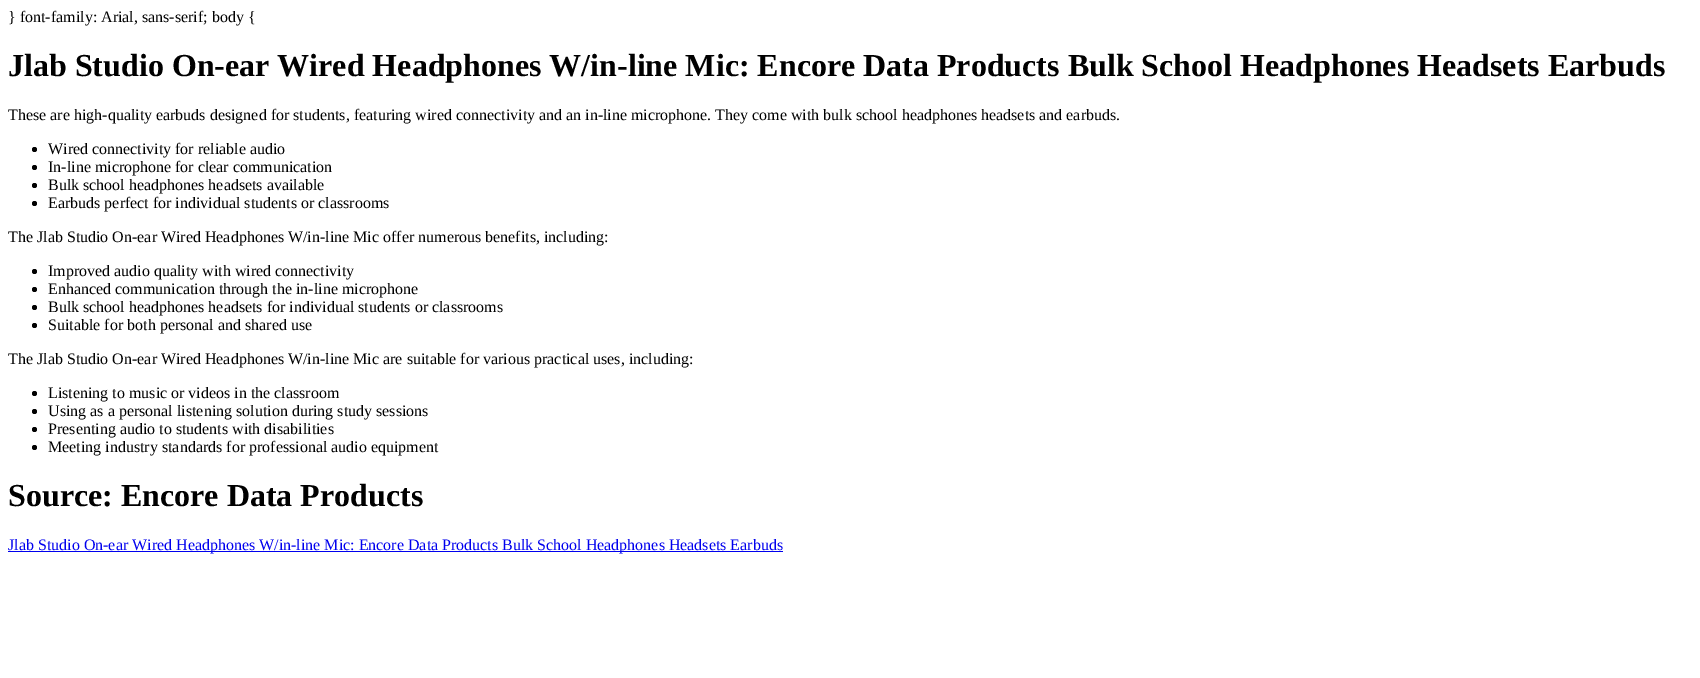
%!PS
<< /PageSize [1700 678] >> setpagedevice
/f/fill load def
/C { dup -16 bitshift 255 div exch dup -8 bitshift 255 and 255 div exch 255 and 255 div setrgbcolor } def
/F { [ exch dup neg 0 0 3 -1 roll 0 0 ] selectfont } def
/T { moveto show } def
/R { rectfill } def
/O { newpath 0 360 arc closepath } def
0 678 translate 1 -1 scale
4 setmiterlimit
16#FFFFFF C
0 0 1700 678 R
/LiberationSerif-Regular 16 F
16#000000 C
(} font-family: Arial, sans-serif; body {) 8 22 T
/LiberationSerif-Bold 32 F
(Jlab Studio On-ear Wired Headphones W/in-line Mic: Encore Data Products Bulk School Headphones Headsets Earbuds) 8 76 T
/LiberationSerif-Regular 16 F
(These are high-quality earbuds designed for students, featuring wired connectivity and an in-line microphone. They come with bulk school headphones headsets and earbuds.) 8 120 T
34.5 149.5 2.5 O f
(Wired connectivity for reliable audio) 48 154 T
34.5 167.5 2.5 O f
(In-line microphone for clear communication) 48 172 T
34.5 185.5 2.5 O f
(Bulk school headphones headsets available) 48 190 T
34.5 203.5 2.5 O f
(Earbuds perfect for individual students or classrooms) 48 208 T
(The Jlab Studio On-ear Wired Headphones W/in-line Mic offer numerous benefits, including:) 8 242 T
34.5 271.5 2.5 O f
(Improved audio quality with wired connectivity) 48 276 T
34.5 289.5 2.5 O f
(Enhanced communication through the in-line microphone) 48 294 T
34.5 307.5 2.5 O f
(Bulk school headphones headsets for individual students or classrooms) 48 312 T
34.5 325.5 2.5 O f
(Suitable for both personal and shared use) 48 330 T
(The Jlab Studio On-ear Wired Headphones W/in-line Mic are suitable for various practical uses, including:) 8 364 T
34.5 393.5 2.5 O f
(Listening to music or videos in the classroom) 48 398 T
34.5 411.5 2.5 O f
(Using as a personal listening solution during study sessions) 48 416 T
34.5 429.5 2.5 O f
(Presenting audio to students with disabilities) 48 434 T
34.5 447.5 2.5 O f
(Meeting industry standards for professional audio equipment) 48 452 T
/LiberationSerif-Bold 32 F
(Source: Encore Data Products) 8 506 T
16#0000EE C
8 551 775 1 R
/LiberationSerif-Regular 16 F
(Jlab Studio On-ear Wired Headphones W/in-line Mic: Encore Data Products Bulk School Headphones Headsets Earbuds) 8 550 T
showpage
